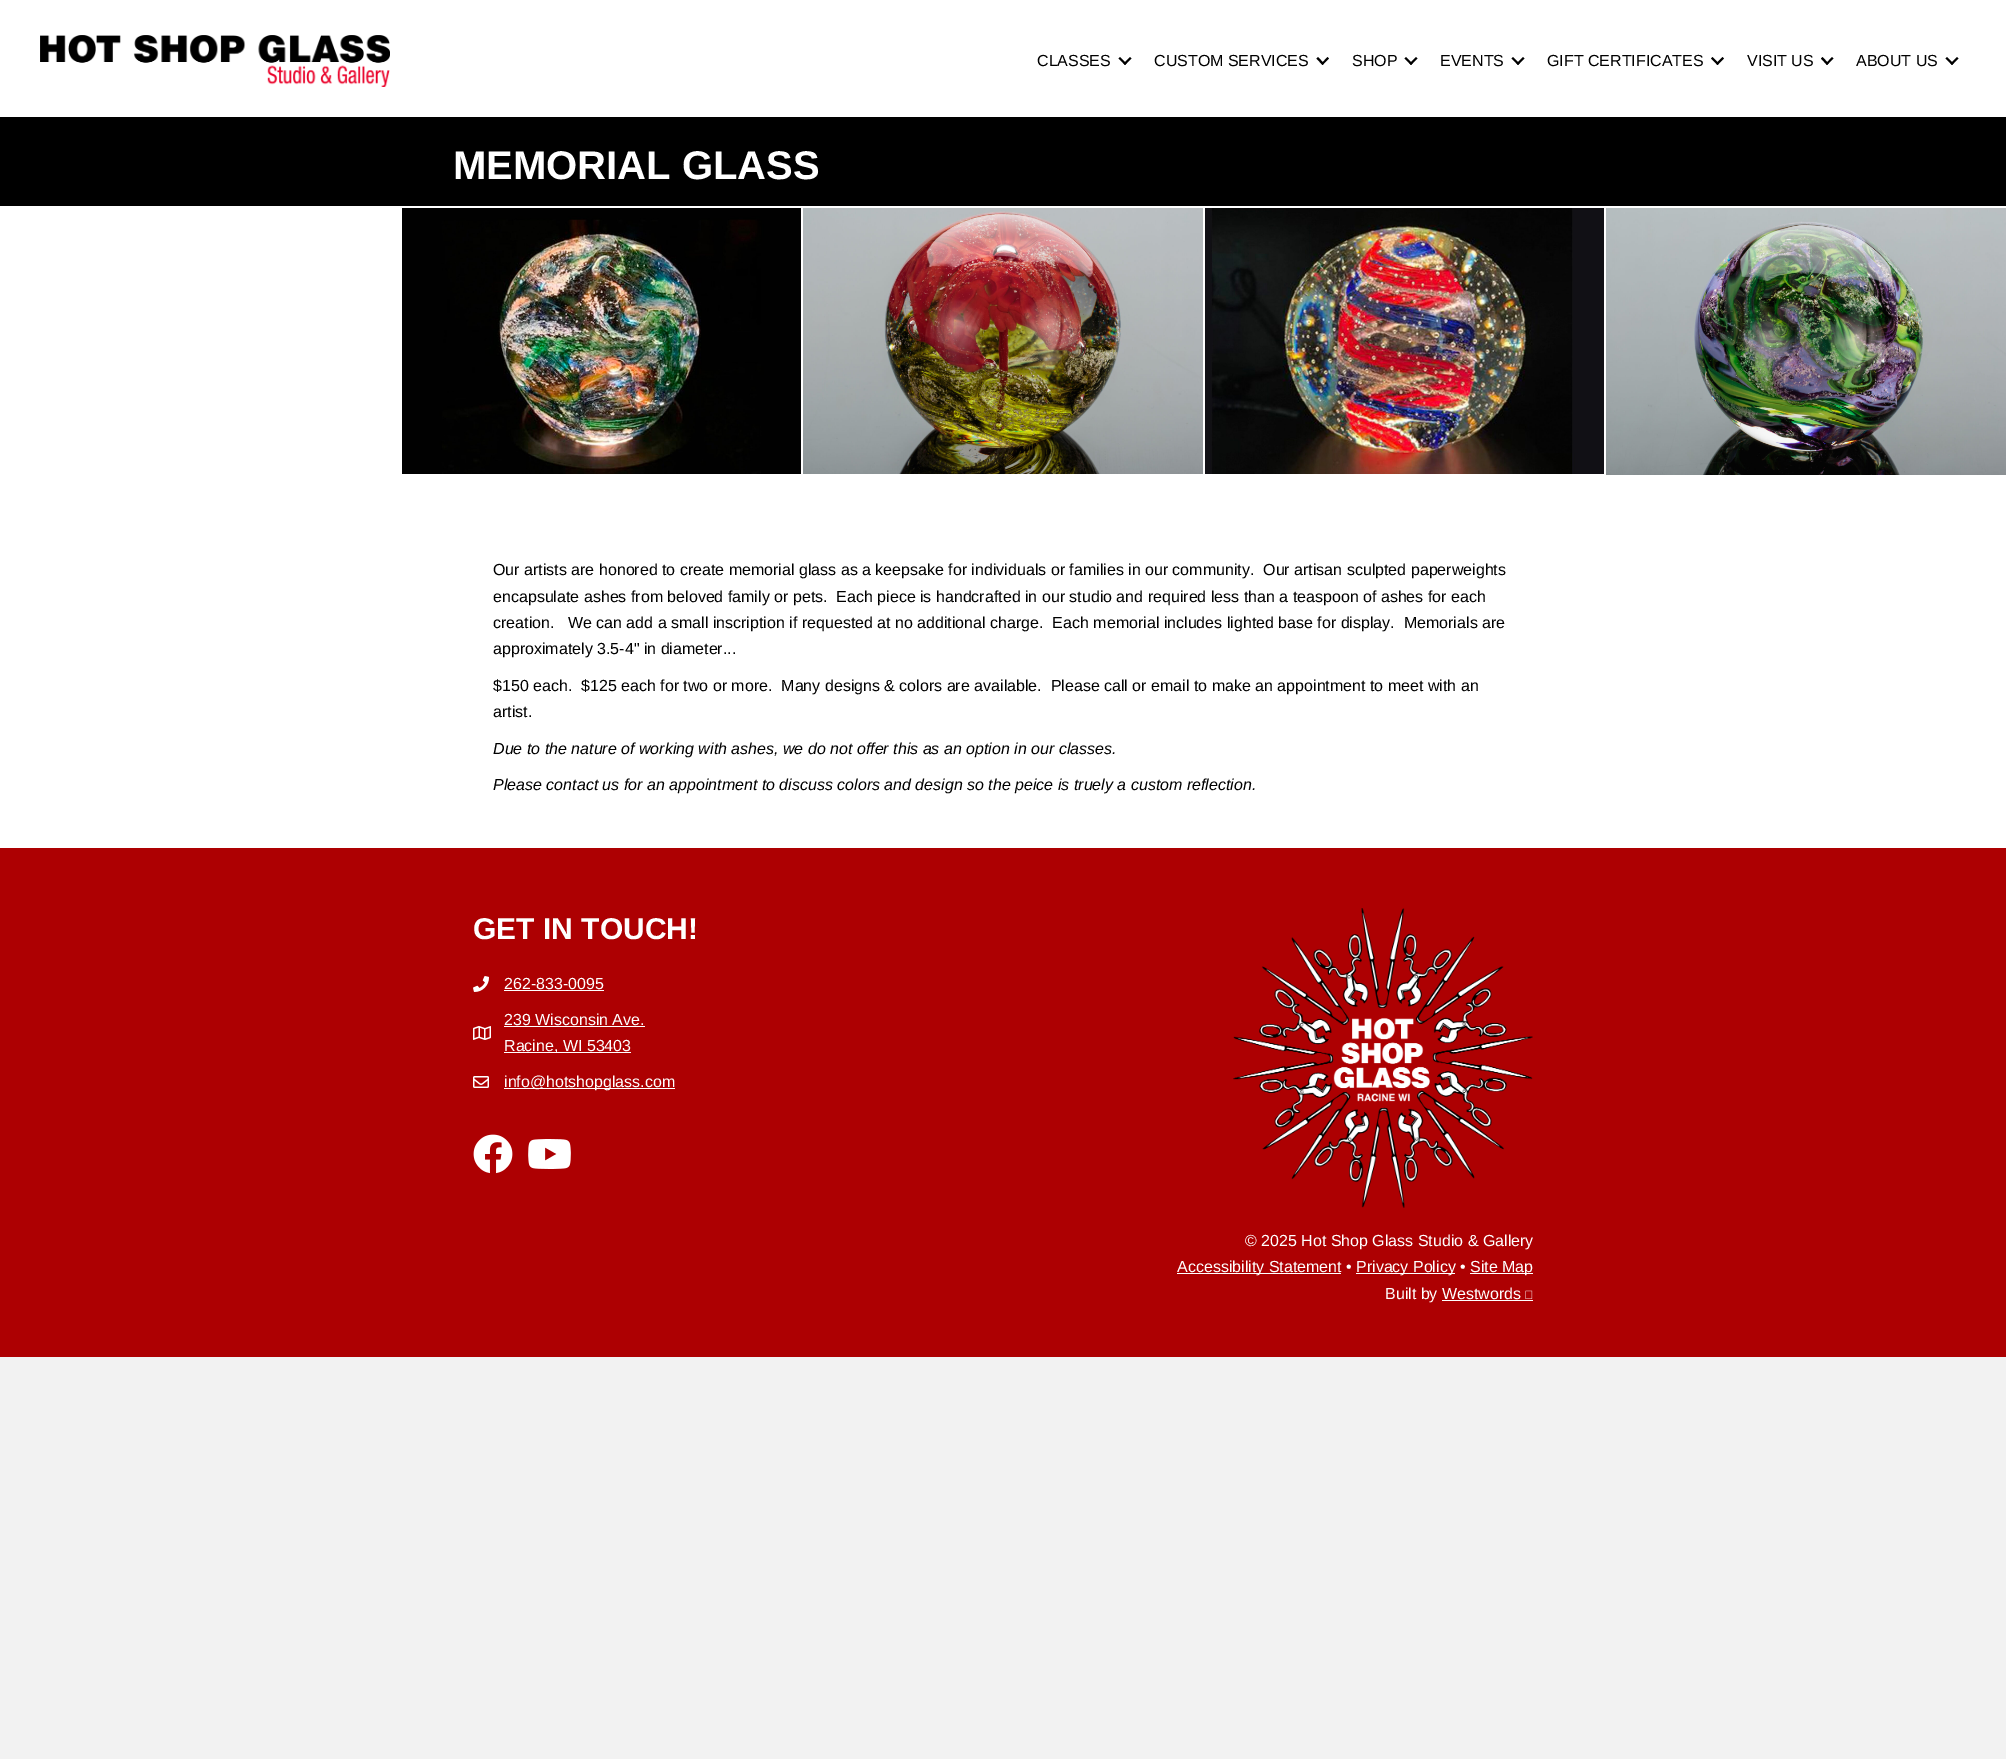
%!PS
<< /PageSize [2006 1759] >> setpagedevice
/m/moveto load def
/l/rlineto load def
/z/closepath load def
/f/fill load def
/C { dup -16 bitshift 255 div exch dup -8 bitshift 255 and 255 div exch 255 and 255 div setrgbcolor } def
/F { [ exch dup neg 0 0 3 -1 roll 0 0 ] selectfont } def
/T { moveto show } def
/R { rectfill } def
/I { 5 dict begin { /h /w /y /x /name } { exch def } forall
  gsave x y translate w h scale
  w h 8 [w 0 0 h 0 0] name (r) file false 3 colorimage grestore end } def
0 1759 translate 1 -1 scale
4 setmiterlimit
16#F2F2F2 C
0 0 2006 1759 R
16#FFFFFF C
0 0 2006 117 R
(1.rgb) 40 35 350 52 I
/LiberationSans-Regular 16 F
16#000000 C
(CLASSES) 1037 66 T
1130 57 m 1.5 1.5 l -6.5 6.5 l -1.5 -1.5 l z f
1120 57 m 6.5 6.5 l -1.5 1.5 l -6.5 -6.5 l z f
(CUSTOM SERVICES) 1154 66 T
1327.5 57 m 1.5 1.5 l -6.5 6.5 l -1 -1.5 l z f
1318 57 m 6 6.5 l -1.5 1.5 l -6 -6.5 l z f
(SHOP) 1352 66 T
1416 57 m 1.5 1.5 l -6.5 6.5 l -1.5 -1.5 l z f
1406 57 m 6.5 6.5 l -1.5 1.5 l -6.5 -6.5 l z f
(EVENTS) 1440 66 T
1523 57 m 1.5 1.5 l -6.5 6.5 l -1.5 -1.5 l z f
1513 57 m 6.5 6.5 l -1.5 1.5 l -6.5 -6.5 l z f
(GIFT CERTIFICATES) 1547 66 T
1722.5 57 m 1.5 1.5 l -6.5 6.5 l -1.5 -1.5 l z f
1712.5 57 m 6.5 6.5 l -1.5 1.5 l -6.5 -6.5 l z f
(VISIT US) 1747 66 T
1832 57 m 1.5 1.5 l -6.5 6.5 l -1 -1.5 l z f
1822.5 57 m 6 6.5 l -1.5 1.5 l -6 -6.5 l z f
(ABOUT US) 1856 66 T
1957 57 m 1.5 1.5 l -6.5 6.5 l -1.5 -1.5 l z f
1947 57 m 6.5 6.5 l -1.5 1.5 l -6.5 -6.5 l z f
16#FFFFFF C
0 206 2006 642 R
16#000000 C
0 117 2006 89 R
/LiberationSans-Bold 40 F
16#FFFFFF C
(MEMORIAL GLASS) 453 179 T
(2.rgb) 402 208 399 266 I
(3.rgb) 803 208 400 266 I
(4.rgb) 1205 208 399 266 I
(5.rgb) 1606 208 400 267 I
/LiberationSans-Regular 16 F
16#000000 C
(Our artists are honored to create memorial glass as a keepsake for individuals or families in our community.  Our artisan sculpted paperweights) 493 575 T
(encapsulate ashes from beloved family or pets.  Each piece is handcrafted in our studio and required less than a teaspoon of ashes for each) 493 602 T
(creation.   We can add a small inscription if requested at no additional charge.  Each memorial includes lighted base for display.  Memorials are) 493 628 T
(approximately 3.5-4" in diameter...) 493 654 T
($150 each.  $125 each for two or more.  Many designs & colors are available.  Please call or email to make an appointment to meet with an) 493 691 T
(artist.) 493 717 T
/LiberationSans-Italic 16 F
(Due to the nature of working with ashes, we do not offer this as an option in our classes.) 493 754 T
(Please contact us for an appointment to discuss colors and design so the peice is truely a custom reflection.) 493 790 T
16#AD0002 C
0 848 2006 509 R
/LiberationSans-Bold 30 F
16#FFFFFF C
(GET IN TOUCH!) 473 939 T
(6.rgb) 473 976 16 16 I
/LiberationSans-Regular 16 F
(262-833-0095) 504 989 T
504 990 100 1 R
(7.rgb) 473 1026 18 14 I
(239 Wisconsin Ave.) 504 1025 T
504 1026 141 1 R
504 1052 127 1 R
(Racine, WI 53403) 504 1051 T
(8.rgb) 473 1076 16 12 I
504 1088 171 1 R
(info@hotshopglass.com) 504 1087 T
(9.rgb) 473 1134 40 40 I
(10.rgb) 528 1139 43 30 I
(11.rgb) 1233 908 300 300 I
(© 2025 Hot Shop Glass Studio & Gallery) 1245 1246 T
1177 1273 164 1 R
(Accessibility Statement •) 1177 1272 T
1356 1273 99 1 R
(Privacy Policy •) 1356 1272 T
1470 1273 63 1 R
(Site Map) 1470 1272 T
(Built by Westwords) 1385 1299 T
(12.rgb) 1525 1290 8 9 I
1442 1300 91 1 R
showpage
